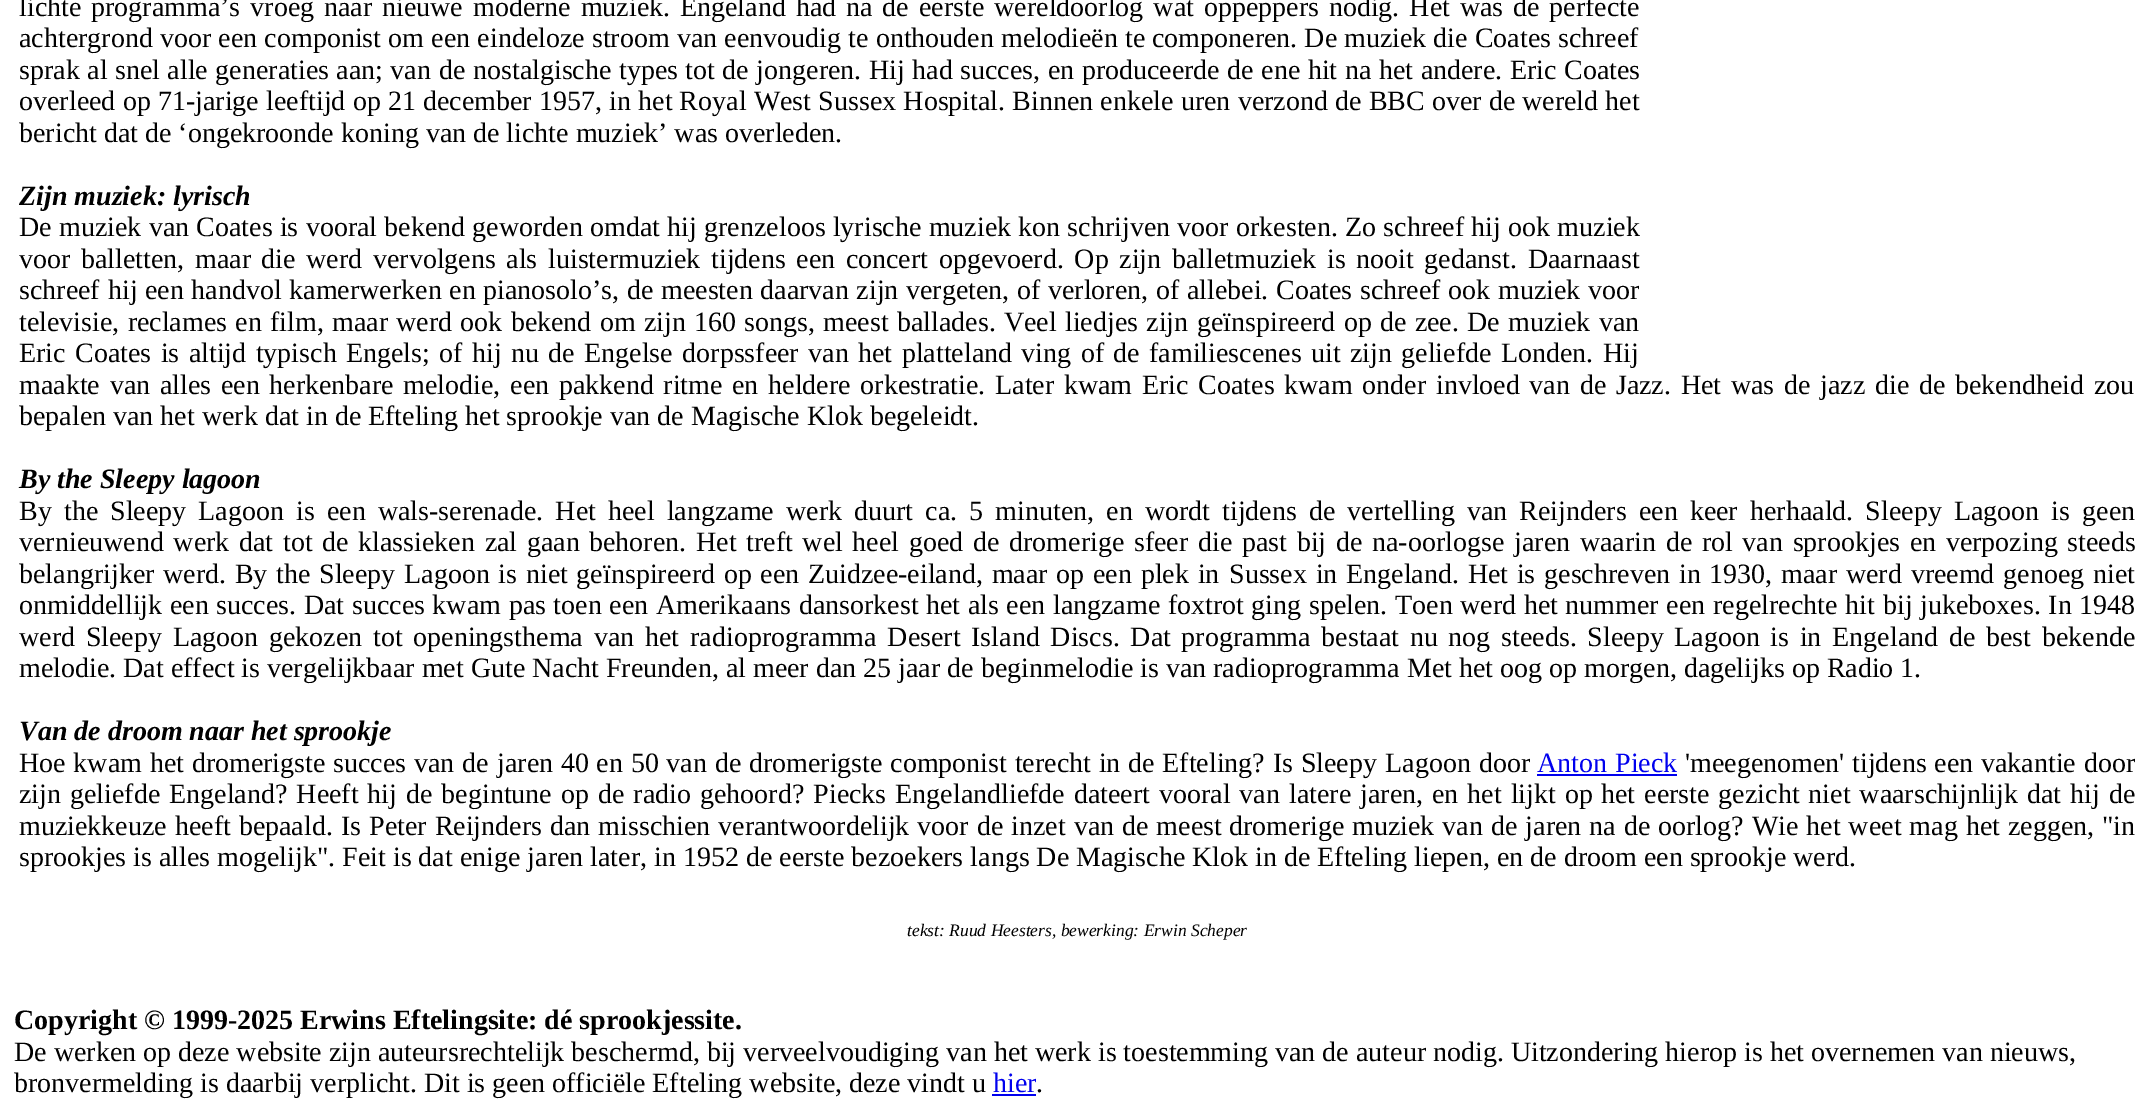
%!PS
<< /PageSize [2154 1113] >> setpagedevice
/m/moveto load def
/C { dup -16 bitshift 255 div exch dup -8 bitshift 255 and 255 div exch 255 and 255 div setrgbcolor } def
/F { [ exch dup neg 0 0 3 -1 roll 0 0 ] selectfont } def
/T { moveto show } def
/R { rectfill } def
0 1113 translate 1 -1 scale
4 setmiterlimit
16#FFFFFF C
0 0 2154 1113 R
/LiberationSerif-Regular 28 F
16#000000 C
19 16 m 2.9 0 32 (lichte programma’s vroeg naar nieuwe moderne muziek. Engeland had na de) widthshow
919 16 m 2.9 0 32 (eerste wereldoorlog wat oppeppers nodig. Het was de perfecte) widthshow
19 47 m .2 0 32 (achtergrond voor een componist om een eindeloze stroom van eenvoudig te onthouden melodieën te) widthshow
(componeren. De muziek die Coates schreef) 1152 47 T
19 79 m .5 0 32 (sprak al snel alle generaties aan; van) widthshow
439 79 m .5 0 32 (de nostalgische types tot de jongeren. Hij had succes, en produceerde de ene hit) widthshow
1345 79 m .5 0 32 (na het andere. Eric Coates) widthshow
19 110 m .2 0 32 (overleed op 71-jarige leeftijd op 21 december 1957, in het Royal West Sussex Hospital. Binnen enkele uren verzond de BBC over de) widthshow
(wereld het) 1522 110 T
(bericht dat de ‘ongekroonde koning van de lichte muziek’ was overleden.) 19 142 T
/LiberationSerif-BoldItalic 28 F
(Zijn muziek: lyrisch) 19 205 T
/LiberationSerif-Regular 28 F
19 236 m .25 0 32 (De muziek van Coates is vooral bekend geworden omdat hij grenzeloos lyrische muziek kon schrijven voor orkesten. Zo schreef hij ook muziek) widthshow
19 268 m 3.6 0 32 (voor balletten, maar die werd vervolgens als luistermuziek tijdens een concert opgevoerd. Op zijn balletmuziek is nooit gedanst. Daarnaast) widthshow
19 299 m 1 0 32 (schreef hij) widthshow
145 299 m .6 0 32 (een handvol kamerwerken en pianosolo’s, de meesten daarvan zijn vergeten, of verloren, of allebei. Coates schreef ook muziek voor) widthshow
19 331 m 1.25 0 32 (televisie, reclames en) widthshow
270 331 m 1.25 0 32 (film, maar werd ook bekend om zijn 160 songs, meest ballades. Veel liedjes zijn) widthshow
1197 331 m 1.25 0 32 (geïnspireerd op de zee. De muziek van) widthshow
19 362 m 2.4 0 32 (Eric Coates is altijd typisch Engels; of hij nu de Engelse dorpssfeer van het platteland ving of de familiescenes uit zijn geliefde Londen. Hij) widthshow
19 394 m 2.7 0 32 (maakte van alles een herkenbare melodie, een pakkend ritme en heldere orkestratie. Later kwam Eric Coates kwam onder invloed van de Jazz. Het was de jazz die de bekendheid zou) widthshow
(bepalen van het werk dat in de Efteling het sprookje van de Magische Klok begeleidt.) 19 425 T
/LiberationSerif-BoldItalic 28 F
(By the Sleepy lagoon) 19 488 T
/LiberationSerif-Regular 28 F
19 520 m 5.1 0 32 (By the Sleepy Lagoon is een wals-serenade. Het heel langzame werk duurt ca. 5 minuten, en wordt tijdens de vertelling van Reijnders een keer) widthshow
1750 520 m 5.1 0 32 (herhaald. Sleepy Lagoon is geen) widthshow
19 551 m 2.7 0 32 (vernieuwend werk dat tot de klassieken zal gaan) widthshow
589 551 m 2.7 0 32 (behoren. Het treft wel heel goed de dromerige sfeer die past bij de na-oorlogse) widthshow
1514 551 m 2.7 0 32 (jaren waarin de rol van sprookjes en verpozing steeds) widthshow
19 583 m 1.75 0 32 (belangrijker werd. By the Sleepy Lagoon is niet geïnspireerd op een Zuidzee-eiland, maar op een plek in) widthshow
1229 583 m 1.75 0 32 (Sussex in Engeland. Het is geschreven in 1930, maar werd vreemd genoeg niet) widthshow
19 614 m .6 0 32 (onmiddellijk een succes. Dat succes kwam pas toen een Amerikaans dansorkest het als een langzame foxtrot ging spelen. Toen werd het nummer een regelrechte hit) widthshow
1883 614 m .6 0 32 (bij jukeboxes. In 1948) widthshow
19 646 m 3.75 0 32 (werd Sleepy Lagoon gekozen tot openingsthema van het) widthshow
690 646 m 3.75 0 32 (radioprogramma Desert Island Discs. Dat programma bestaat nu nog steeds. Sleepy) widthshow
1674 646 m 3.75 0 32 (Lagoon is in Engeland de best bekende) widthshow
(melodie. Dat effect is vergelijkbaar met Gute Nacht Freunden, al meer dan 25 jaar de beginmelodie is van radioprogramma Met het oog op morgen, dagelijks op Radio 1.) 19 677 T
/LiberationSerif-BoldItalic 28 F
(Van de droom naar het sprookje) 19 740 T
/LiberationSerif-Regular 28 F
19 772 m .75 0 32 (Hoe kwam het dromerigste succes van de) widthshow
497 772 m .75 0 32 (jaren 40 en 50 van de dromerigste componist terecht in de Efteling? Is Sleepy) widthshow
1385 772 m 1 0 32 (Lagoon door) widthshow
16#0000EE C
1537 772 m 1 0 32 (Anton Pieck) widthshow
1537 774 140 2 R
16#000000 C
1685 772 m .75 0 32 ('meegenomen' tijdens een) widthshow
1981 772 m 1 0 32 (vakantie door) widthshow
19 803 m 2 0 32 (zijn geliefde Engeland? Heeft hij de begintune op de radio) widthshow
700 803 m 2 0 32 (gehoord? Piecks Engelandliefde dateert vooral van latere jaren, en het lijkt op) widthshow
1601 803 m 2 0 32 (het eerste gezicht niet waarschijnlijk dat hij de) widthshow
19 835 m 1 0 32 (muziekkeuze heeft bepaald. Is) widthshow
369 835 m 1 0 32 (Peter Reijnders dan misschien verantwoordelijk voor de inzet van de meest) widthshow
1229 835 m 1 0 32 (dromerige muziek van de jaren na de oorlog? Wie het weet mag het zeggen, "in) widthshow
(sprookjes is alles mogelijk". Feit is dat enige jaren later, in 1952 de eerste bezoekers langs De Magische Klok in de Efteling liepen, en de droom een sprookje werd.) 19 866 T
/LiberationSerif-Italic 17.5 F
(tekst: Ruud Heesters, bewerking: Erwin Scheper) 907 936 T
/LiberationSerif-Bold 28 F
(Copyright © 1999-2025 Erwins Eftelingsite: dé sprookjessite.) 14 1029 T
/LiberationSerif-Regular 28 F
(De werken op deze website zijn auteursrechtelijk beschermd, bij verveelvoudiging van het werk is toestemming van de auteur nodig. Uitzondering hierop is het overnemen van nieuws,) 14 1061 T
(bronvermelding is daarbij verplicht. Dit is geen officiële Efteling website, deze vindt u) 14 1092 T
16#0000EE C
(hier) 993 1092 T
992 1094 44 2 R
16#000000 C
(.) 1036 1092 T
showpage
